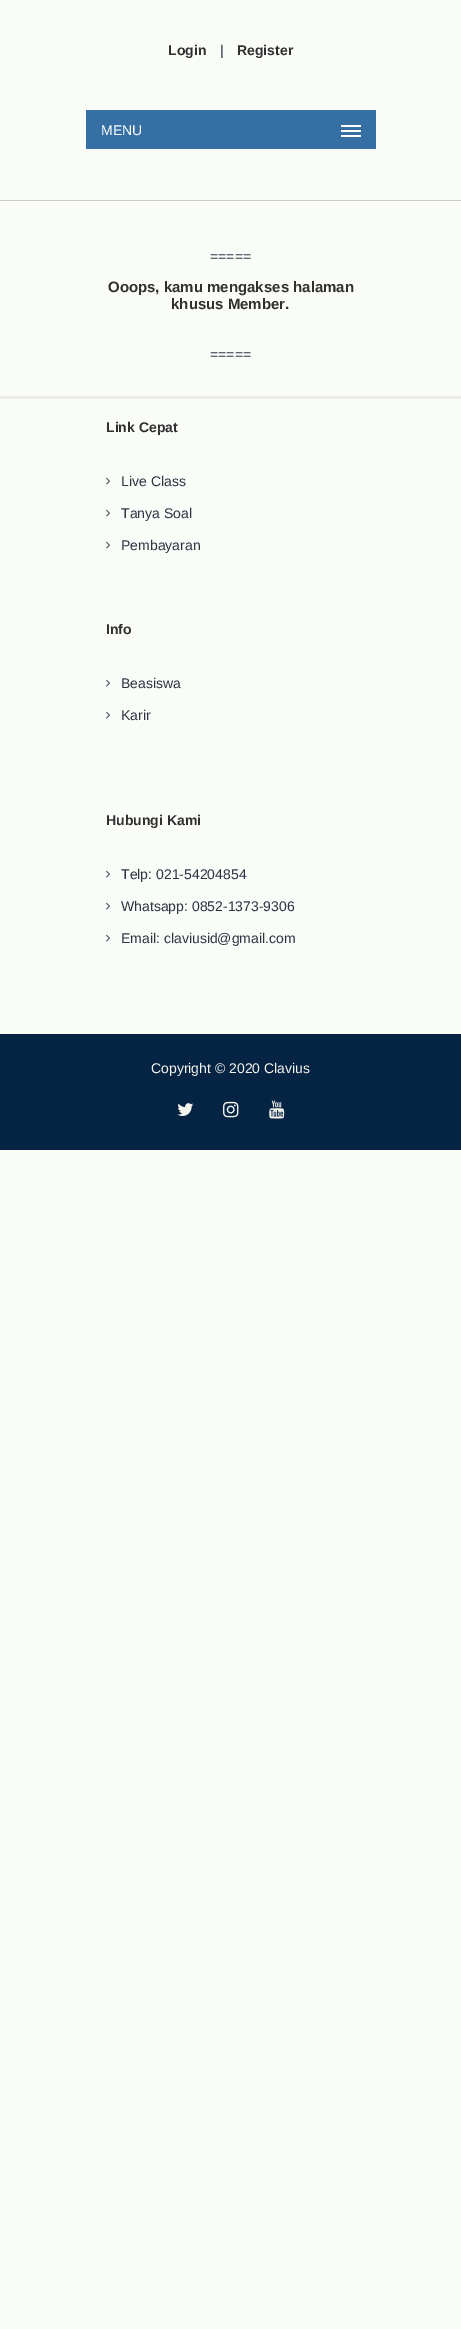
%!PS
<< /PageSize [461 2329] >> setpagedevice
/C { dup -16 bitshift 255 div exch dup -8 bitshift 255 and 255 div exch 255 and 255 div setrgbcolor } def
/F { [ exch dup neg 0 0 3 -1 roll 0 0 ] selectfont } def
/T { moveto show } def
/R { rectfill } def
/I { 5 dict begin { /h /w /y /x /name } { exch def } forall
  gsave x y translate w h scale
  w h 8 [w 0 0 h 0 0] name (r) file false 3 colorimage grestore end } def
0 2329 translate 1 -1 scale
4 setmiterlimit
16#FAFCF8 C
0 0 461 2329 R
/LiberationSans-Bold 14 F
16#303030 C
(Login) 168 55 T
/LiberationSans-Regular 14 F
16#2C3341 C
(|) 220 55 T
/LiberationSans-Bold 14 F
16#303030 C
(Register) 237 55 T
16#366FA4 C
86 110 290 39 R
/LiberationSans-Regular 14 F
16#FFFFFF C
(MENU) 101 135 T
341 130 20 2 R
341 125 20 2 R
341 135 20 2 R
16#CCCCCC C
0 200 461 1 R
16#2C3341 C
(=====) 210 261 T
/LiberationSans-Bold 15 F
16#303030 C
(Ooops, kamu mengakses halaman) 108 292 T
(khusus Member.) 171 309 T
/LiberationSans-Regular 14 F
16#2C3341 C
(=====) 210 359 T
16#EDEDED C
0 396 461 3 R
/LiberationSans-Bold 14 F
16#303030 C
(Link Cepat) 106 432 T
(1.rgb) 106 477 4 8 I
/LiberationSans-Regular 14 F
16#2C3341 C
(Live Class) 121 486 T
(1.rgb) 106 509 4 8 I
(Tanya Soal) 121 518 T
(1.rgb) 106 541 4 8 I
(Pembayaran) 121 550 T
/LiberationSans-Bold 14 F
16#303030 C
(Info) 106 634 T
(1.rgb) 106 679 4 8 I
/LiberationSans-Regular 14 F
16#2C3341 C
(Beasiswa) 121 688 T
(1.rgb) 106 711 4 8 I
(Karir) 121 720 T
/LiberationSans-Bold 14 F
16#303030 C
(Hubungi Kami) 106 825 T
(1.rgb) 106 870 4 8 I
/LiberationSans-Regular 14 F
16#2C3341 C
(Telp: 021-54204854) 121 879 T
(1.rgb) 106 902 4 8 I
(Whatsapp: 0852-1373-9306) 121 911 T
(1.rgb) 106 934 4 8 I
(Email: claviusid@gmail.com) 121 943 T
16#052343 C
0 1034 461 116 R
16#F5F5EE C
(Copyright © 2020 Clavius) 151 1073 T
(2.rgb) 177 1103 17 13 I
(3.rgb) 223 1101 16 17 I
(4.rgb) 269 1100 16 19 I
showpage
